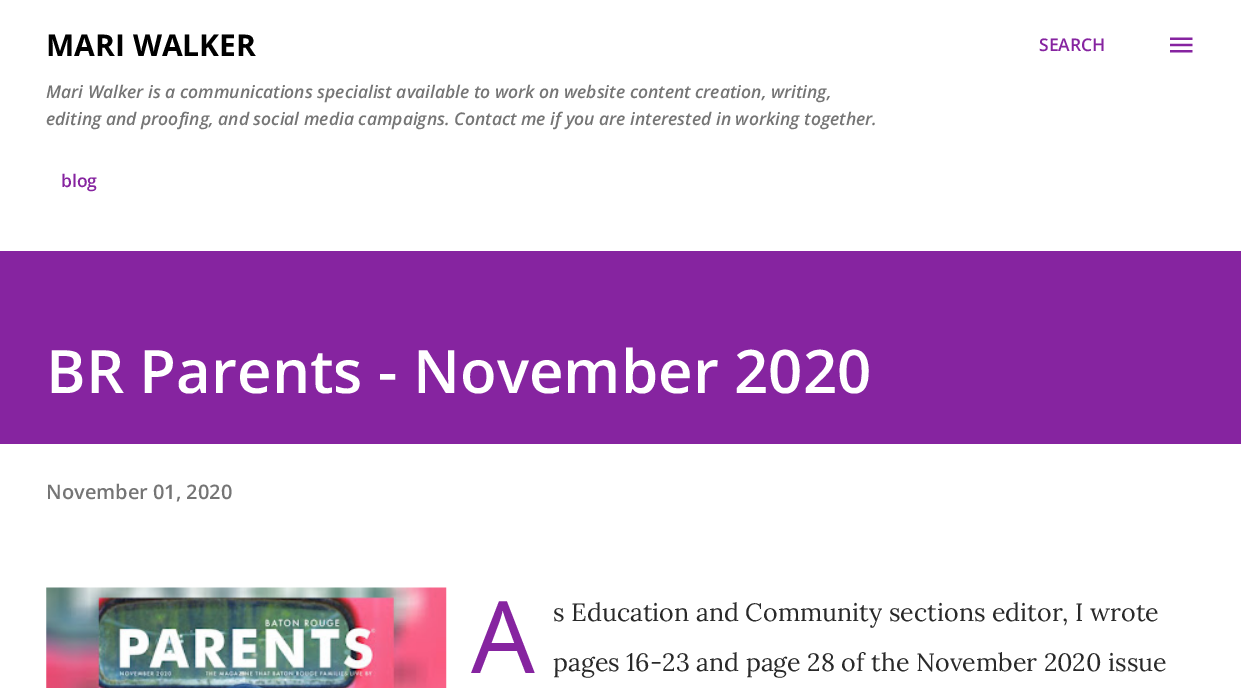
%!PS
<< /PageSize [1241 688] >> setpagedevice
/C { dup -16 bitshift 255 div exch dup -8 bitshift 255 and 255 div exch 255 and 255 div setrgbcolor } def
/F { [ exch dup neg 0 0 3 -1 roll 0 0 ] selectfont } def
/T { moveto show } def
/R { rectfill } def
/I { 5 dict begin { /h /w /y /x /name } { exch def } forall
  gsave x y translate w h scale
  w h 8 [w 0 0 h 0 0] name (r) file false 3 colorimage grestore end } def
0 688 translate 1 -1 scale
4 setmiterlimit
16#FFFFFF C
0 0 1241 688 R
/OpenSans-Bold 30 F
16#000000 C
(MARI WALKER) 46 56 T
/OpenSans-SemiBoldItalic 17.5 F
16#757575 C
(Mari Walker is a communications specialist available to work on website content creation, writing,) 46 98 T
(editing and proofing, and social media campaigns. Contact me if you are interested in working together.) 46 125 T
/OpenSans-SemiBold 17.5 F
16#8624A0 C
(SEARCH) 1039 51 T
(1.rgb) 1170 37 23 16 I
(blog) 61 187 T
0 251 1241 193 R
/OpenSans-SemiBold 60 F
16#FFFFFF C
(BR Parents - November 2020) 46 393 T
/OpenSans-SemiBold 20 F
16#757575 C
(November 01, 2020) 46 499 T
/NotoSans-Regular 100 F
16#8624A0 C
(A) 471 673 T
(2.rgb) 46 587 401 101 I
/Lora-Regular 25 F
16#292929 C
(s Education and Community sections editor, I wrote) 553 621 T
(pages 16-23 and page 28 of the November 2020 issue) 553 671 T
showpage
